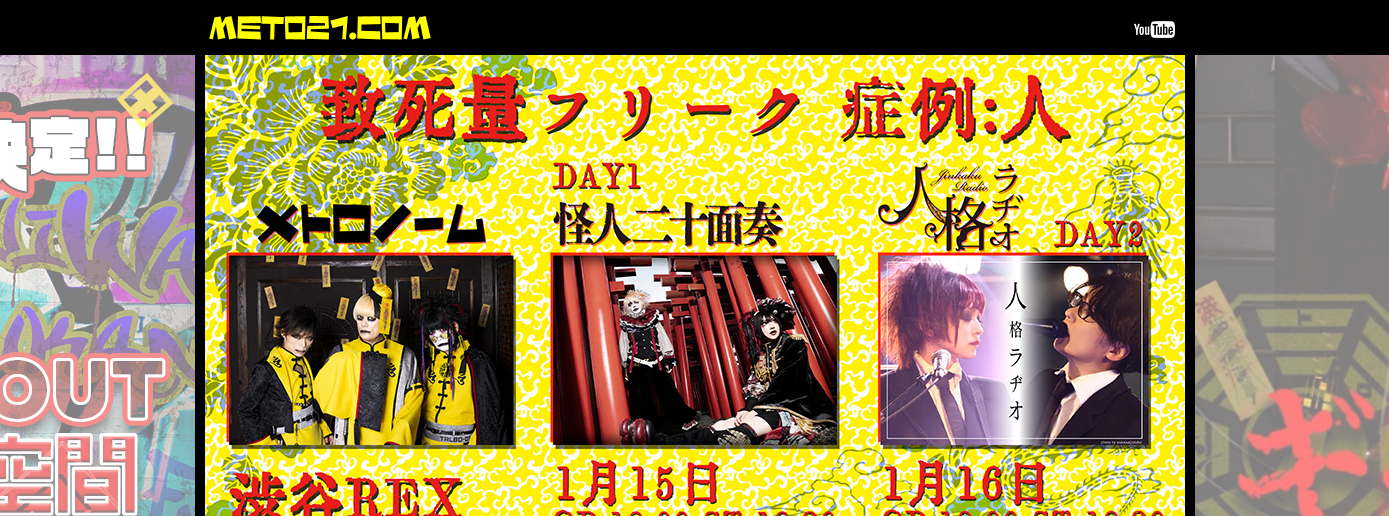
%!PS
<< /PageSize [1389 516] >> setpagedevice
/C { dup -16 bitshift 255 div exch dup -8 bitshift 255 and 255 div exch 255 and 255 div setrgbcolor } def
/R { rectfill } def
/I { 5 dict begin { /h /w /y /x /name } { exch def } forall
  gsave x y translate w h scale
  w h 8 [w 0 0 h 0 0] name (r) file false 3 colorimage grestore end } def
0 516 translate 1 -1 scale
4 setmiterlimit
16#000000 C
0 0 1389 516 R
(1.rgb) 209 16 222 24 I
(2.rgb) 1134 21 41 17 I
(3.rgb) 0 55 195 461 I
(4.rgb) 205 55 980 461 I
(5.rgb) 1195 55 194 461 I
showpage
